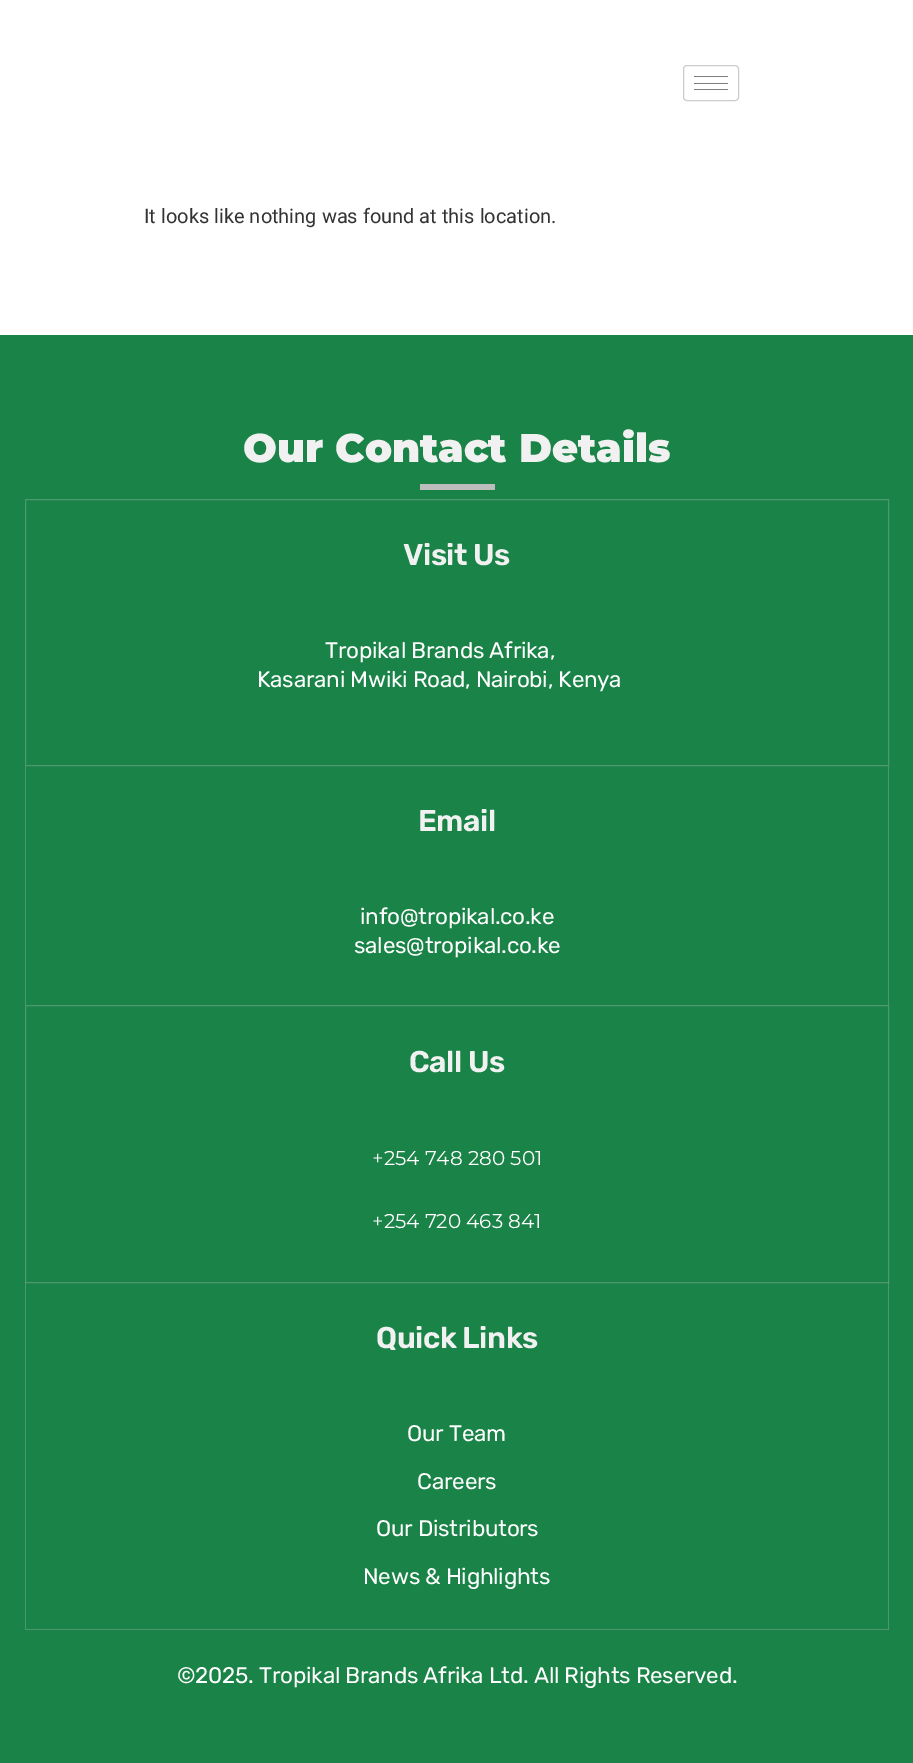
%!PS
<< /PageSize [913 1763] /PageUsesTransparency true >> setpagedevice
/m/moveto load def
/l/rlineto load def
/z/closepath load def
/f/fill load def
/s/stroke load def
/C { dup -16 bitshift 255 div exch dup -8 bitshift 255 and 255 div exch 255 and 255 div setrgbcolor } def
/F { [ exch dup neg 0 0 3 -1 roll 0 0 ] selectfont } def
/T { moveto show } def
/R { rectfill } def
/A { dup .setfillconstantalpha .setstrokeconstantalpha } def
/Q { 5 dict begin { /r /h /w /y /x } { exch def } forall
  x r add y moveto x w add y 2 copy h add r arct x w add y h add x 1 index r arct
  x y h add x y r arct x y 2 copy exch w add exch r arct closepath end } def
0 .pushpdf14devicefilter
0 1763 translate 1 -1 scale
4 setmiterlimit
16#FFFFFF C
0 0 913 1763 R
16#CCCCCC C
683.5 65.5 55 35 3.5 Q s
16#808080 C
694 76 34 1 R
694 83 34 1 R
694 89 34 1 R
/Roboto-Regular 20 F
16#333333 C
(It looks like nothing was found at this location.) 144 223 T
16#1A8347 C
0 335 913 1428 R
/Montserrat-Black 40 F
16#F1F1F1 C
(Our Contact Details) 243 462 T
16#BDBDBD C
420 484 75 6 R
16#4E966D C
25.5 499.5 863 266 rectstroke
/Rubik-SemiBold 30 F
16#F1F1F1 C
403 565 m -.5 0 (Visit Us) ashow
/Rubik-Regular 22.5 F
16#FFFFFF C
325 658 m -.25 0 (Tropikal Brands Afrika,) ashow
257 687 m -.25 0 (Kasarani Mwiki Road, Nairobi, Kenya) ashow
16#4E966D C
888 766 1 239 R
25 766 1 239 R
/Rubik-SemiBold 30 F
16#F1F1F1 C
418 831 m -.5 0 (Email) ashow
/Rubik-Regular 22.5 F
16#FFFFFF C
360 924 m -.25 0 (info@tropikal.co.ke) ashow
354 953 m -.25 0 (sales@tropikal.co.ke) ashow
16#4E966D C
25.5 1005.5 863 277 rectstroke
/Rubik-SemiBold 30 F
16#F1F1F1 C
409 1072 m -.5 0 (Call Us) ashow
/Montserrat-Regular 20 F
16#FFFFFF C
(+254 748 280 501) 372 1165 T
(+254 720 463 841) 372 1228 T
0.32 A
16#BDBDBD C
889 1282 m 0 348 l -1 -1 l 0 -347 l z f
889 1630 m -864 0 l 1 -1 l 862 0 l z f
25 1630 m 0 -348 l 1 0 l 0 347 l z f
/Rubik-SemiBold 30 F
1 A
16#F1F1F1 C
376 1348 m -.5 0 (Quick Links) ashow
/Rubik-Regular 22.5 F
16#FFFFFF C
407 1441 m -.25 0 (Our Team) ashow
417 1489 m -.25 0 (Careers) ashow
376 1536 m -.25 0 (Our Distributors) ashow
363 1584 m -.25 0 (News & Highlights) ashow
177 1683 m -.25 0 (©2025. Tropikal Brands Afrika Ltd. All Rights Reserved.) ashow
.poppdf14devicefilter showpage
